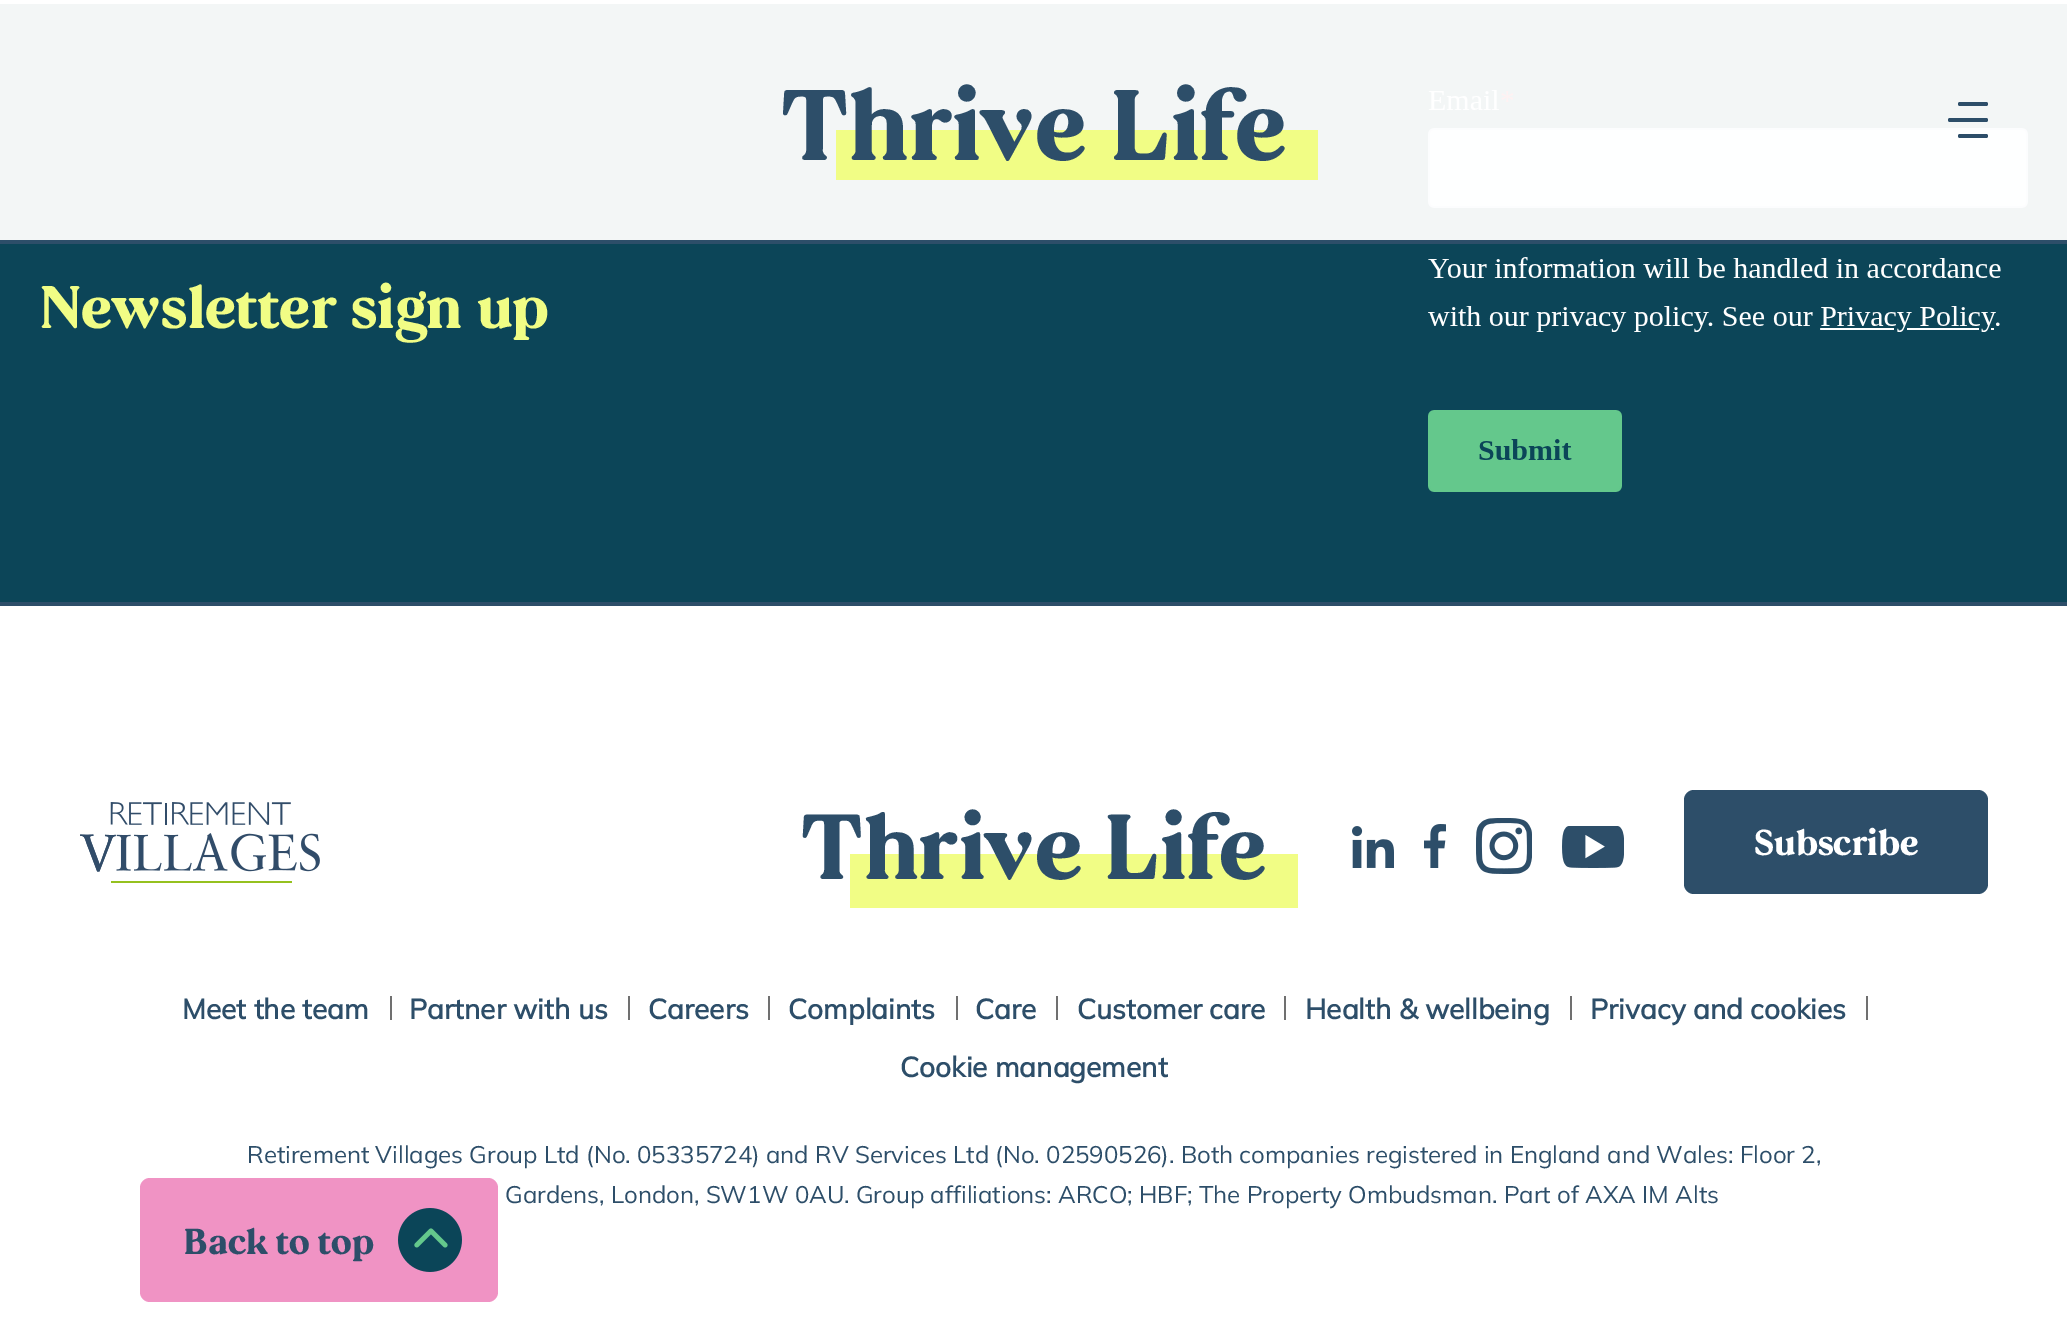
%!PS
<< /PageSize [2067 1322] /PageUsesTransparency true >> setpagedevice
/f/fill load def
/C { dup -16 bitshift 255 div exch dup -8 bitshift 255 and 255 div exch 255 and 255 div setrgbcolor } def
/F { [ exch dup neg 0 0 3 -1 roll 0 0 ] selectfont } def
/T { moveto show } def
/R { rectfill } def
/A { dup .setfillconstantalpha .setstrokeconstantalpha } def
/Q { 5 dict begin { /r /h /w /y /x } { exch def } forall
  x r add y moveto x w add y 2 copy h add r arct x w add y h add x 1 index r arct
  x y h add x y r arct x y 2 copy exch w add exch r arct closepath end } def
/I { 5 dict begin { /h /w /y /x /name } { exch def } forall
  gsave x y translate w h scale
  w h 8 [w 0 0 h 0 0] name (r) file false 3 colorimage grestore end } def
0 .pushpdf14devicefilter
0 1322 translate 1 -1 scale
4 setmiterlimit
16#FFFFFF C
0 0 2067 1322 R
16#0C4558 C
0 4 2067 598 R
(1.rgb) 1428 90 600 402 I
0.95 A
16#FFFFFF C
0 4 2067 236 R
1 A
16#2D4E69 C
0 240 2067 4 R
16#F1FD85 C
836 130 482 50 R
/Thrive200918-Bold 100 F
16#2D4E69 C
(Thrive Life) 780 160 T
1948 118 40 4 2 Q f
1958 102 30 4 2 Q f
1958 134 30 4 2 Q f
/Thrive200918-Bold 60 F
16#F1FD85 C
(Newsletter sign up) 40 328 T
16#2D4E69 C
0 602 2067 4 R
(2.rgb) 80 802 240 81 I
16#F1FD85 C
850 854 448 54 R
/Thrive200918-Bold 92 F
16#2D4E69 C
(Thrive Life) 800 879 T
(3.rgb) 1352 826 42 42 I
(4.rgb) 1424 824 22 44 I
(5.rgb) 1476 818 56 56 I
(6.rgb) 1562 826 62 42 I
1684 790 304 104 10 Q f
/Thrive200918-Bold 36 F
16#FFFFFF C
(Subscribe) 1754 855 T
/Mulish-Bold 28 F
16#2D4E69 C
(Meet the team) 182 1019 T
16#707070 C
390 996 2 24 R
16#2D4E69 C
(Partner with us) 409 1019 T
16#707070 C
628 996 2 24 R
16#2D4E69 C
(Careers) 648 1019 T
16#707070 C
768 996 2 24 R
16#2D4E69 C
(Complaints) 788 1019 T
16#707070 C
956 996 2 24 R
16#2D4E69 C
(Care) 975 1019 T
16#707070 C
1056 996 2 24 R
16#2D4E69 C
(Customer care) 1077 1019 T
16#707070 C
1284 996 2 24 R
16#2D4E69 C
(Health & wellbeing) 1305 1019 T
16#707070 C
1570 996 2 24 R
16#2D4E69 C
(Privacy and cookies) 1590 1019 T
16#707070 C
1866 996 2 24 R
16#2D4E69 C
(Cookie management) 900 1077 T
/Mulish-ExtraLight 24 F
(Retirement Villages Group Ltd \(No. 05335724\) and RV Services Ltd \(No. 02590526\). Both companies registered in England and Wales: Floor 2,) 247 1163 T
(Gardens, London, SW1W 0AU. Group affiliations: ARCO; HBF; The Property Ombudsman. Part of AXA IM Alts) 505 1203 T
16#F093C4 C
140 1178 358 124 10 Q f
(7.rgb) 398 1208 64 64 I
/Thrive200918-Bold 36 F
16#2D4E69 C
(Back to top) 184 1254 T
.poppdf14devicefilter showpage
